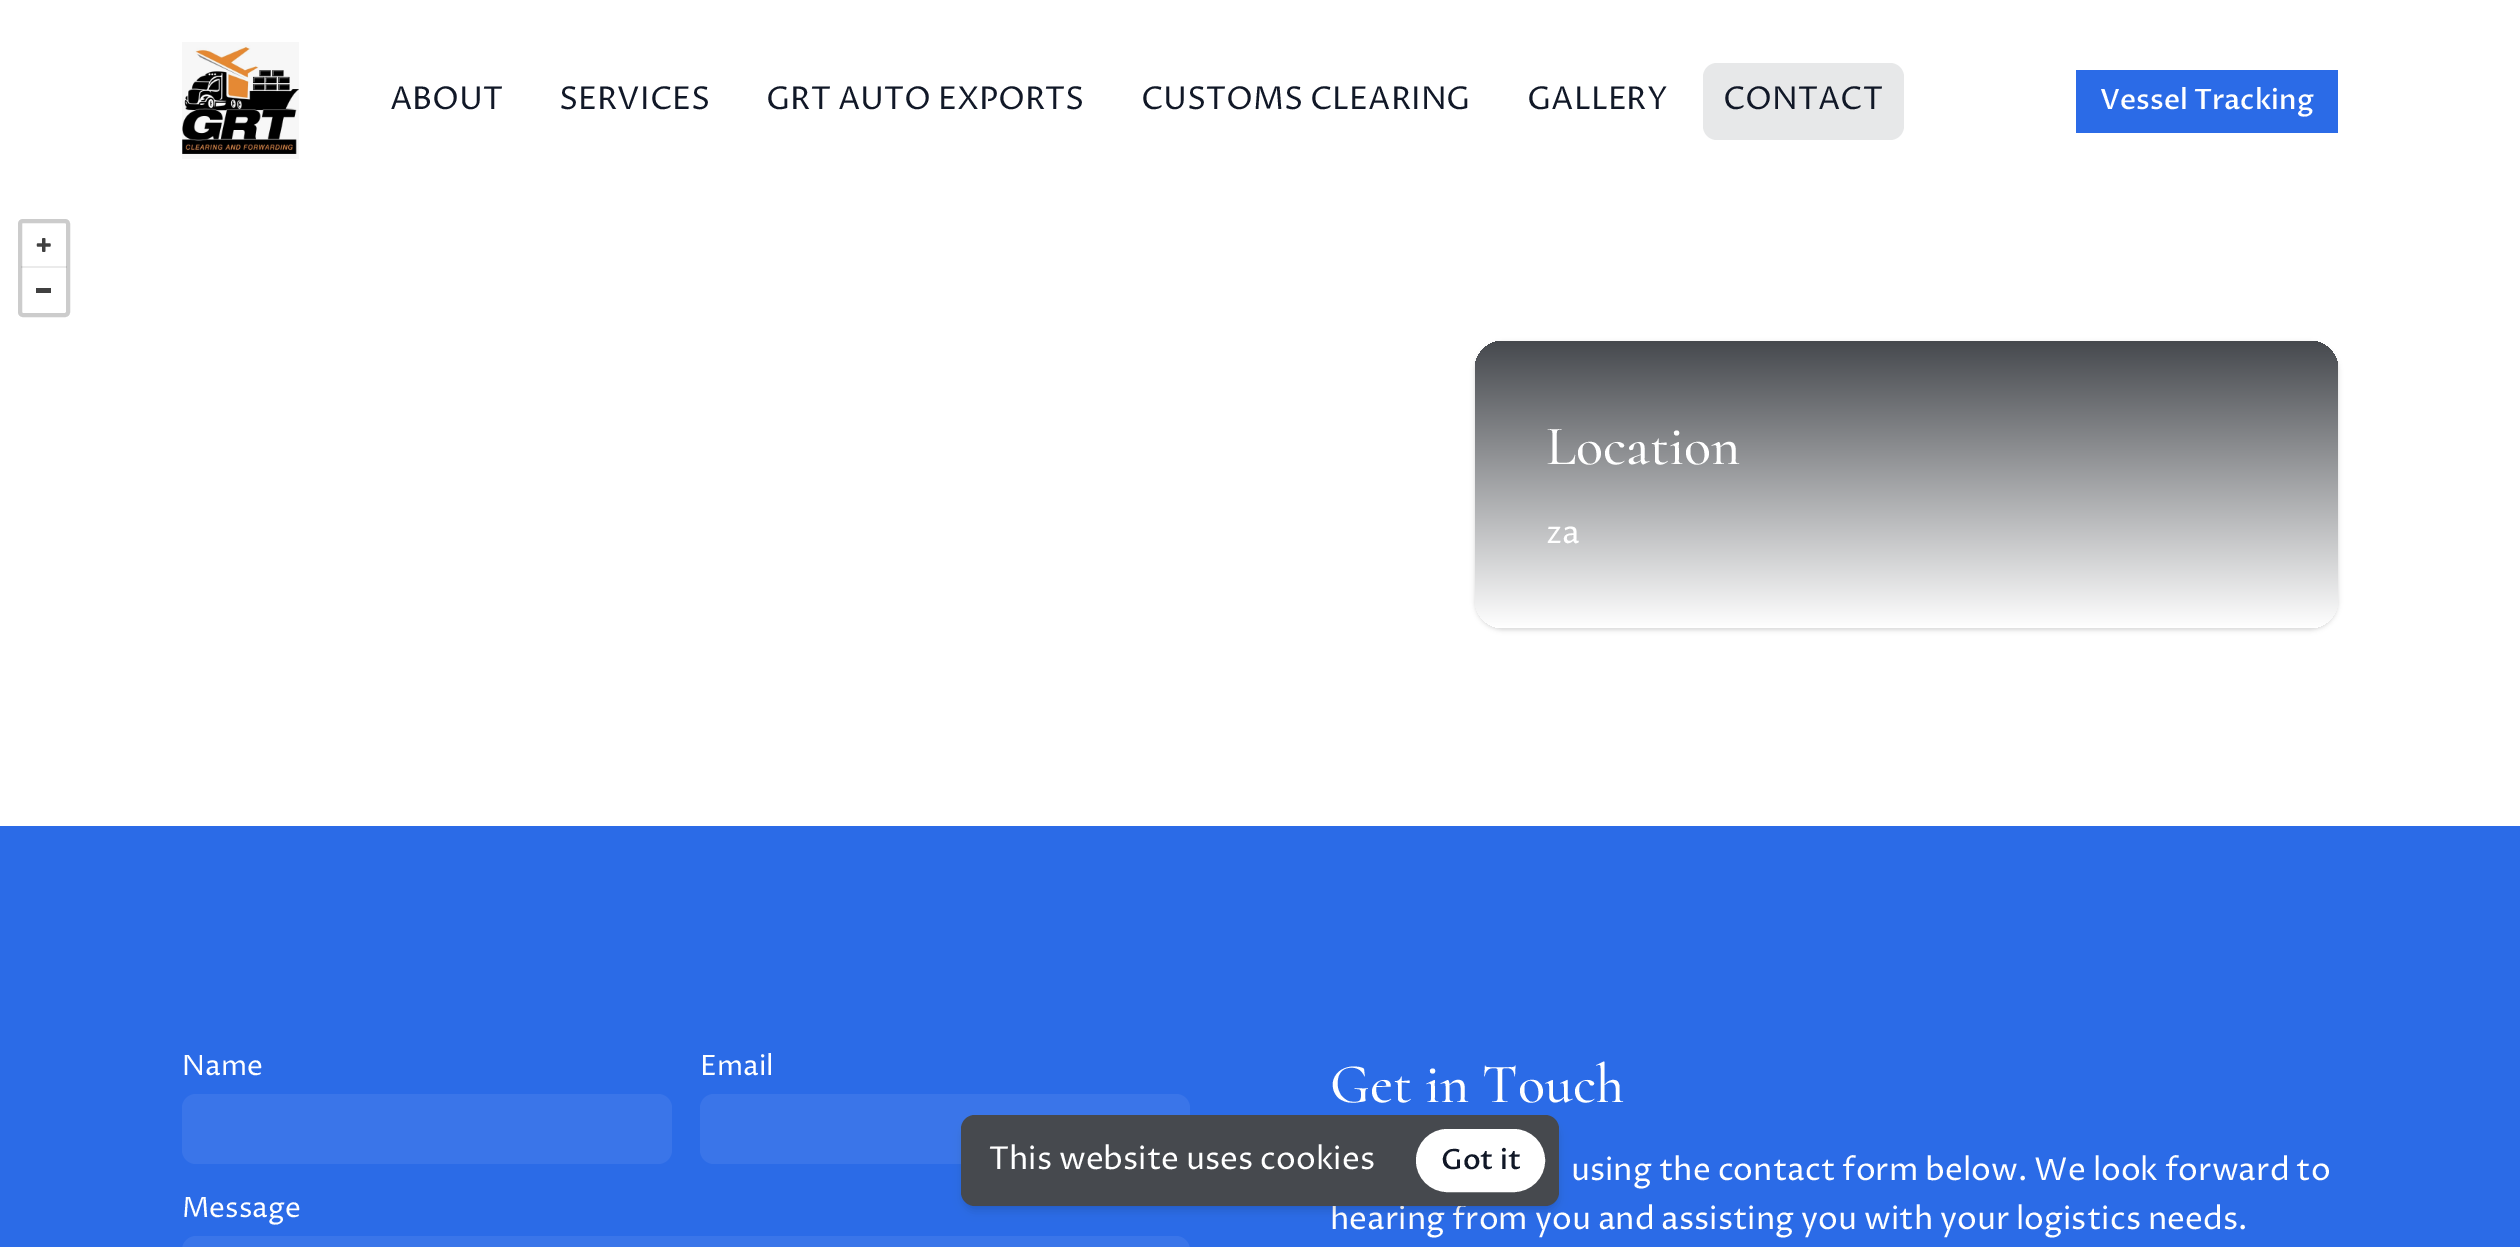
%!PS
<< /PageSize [2520 1247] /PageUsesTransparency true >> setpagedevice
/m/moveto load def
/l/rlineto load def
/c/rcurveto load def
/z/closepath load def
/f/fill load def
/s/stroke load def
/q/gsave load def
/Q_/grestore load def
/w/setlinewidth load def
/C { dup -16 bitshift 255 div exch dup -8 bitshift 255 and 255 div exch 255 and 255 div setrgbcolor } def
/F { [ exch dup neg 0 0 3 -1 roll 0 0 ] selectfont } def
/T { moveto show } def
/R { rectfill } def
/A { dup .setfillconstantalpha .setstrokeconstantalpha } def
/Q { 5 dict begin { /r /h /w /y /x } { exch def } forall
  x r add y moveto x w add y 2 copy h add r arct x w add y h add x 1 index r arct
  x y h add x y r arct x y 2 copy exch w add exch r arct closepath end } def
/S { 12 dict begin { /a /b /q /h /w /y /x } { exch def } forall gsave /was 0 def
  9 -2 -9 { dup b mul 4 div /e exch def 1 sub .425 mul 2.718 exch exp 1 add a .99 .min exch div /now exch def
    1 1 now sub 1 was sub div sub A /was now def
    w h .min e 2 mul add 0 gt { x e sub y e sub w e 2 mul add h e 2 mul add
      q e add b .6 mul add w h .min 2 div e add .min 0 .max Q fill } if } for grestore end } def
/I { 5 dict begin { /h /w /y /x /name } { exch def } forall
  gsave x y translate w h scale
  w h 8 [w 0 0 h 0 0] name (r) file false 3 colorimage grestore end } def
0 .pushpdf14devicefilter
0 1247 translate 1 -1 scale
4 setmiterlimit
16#FFFFFF C
0 0 2520 1247 R
(1.rgb) 182 42 117 117 I
/ProzaLibre-Regular 31.5 F
16#111827 C
(ABOUT) 390 109 T
(SERVICES) 559 109 T
(GRT AUTO EXPORTS) 766 109 T
(CUSTOMS CLEARING) 1141 109 T
(GALLERY) 1527 109 T
16#E7E8E9 C
1703 63 201 77 14 Q f
16#111827 C
(CONTACT) 1723 109 T
16#2B6BE7 C
2076 70 262 63 R
/ProzaLibre-Medium 28 F
16#FFFFFF C
(Vessel Tracking) 2100 109 T
16#CCCCCC C
4 w
20 221 48 94 3 Q s
(2.rgb) 36 238 15 14 I
0.08 A
16#000000 C
21 266 46 2 R
1 A
16#404040 C
36 288 15 5 R
16#000000 C
1475 343 863 287 28 2 .06 S
1475 343 863 287 28 2.5 .1 S
q 1475 341 863 287 28 Q clip newpath
<< /ShadingType 2 /ColorSpace /DeviceRGB /Coords [1907 341 1907 628] /Extend [true true] /Function << /FunctionType 2 /Domain [0 1] /C0 [.275 .286 .306] /C1 [1 1 1] /N 1 >> >> shfill Q_
/Cormorant-Medium 56 F
16#FFFFFF C
(Location) 1546 464 T
/ProzaLibre-Regular 31.5 F
(za) 1546 543 T
16#2B6BE7 C
0 826 2520 421 R
/ProzaLibre-Regular 28 F
16#FFFFFF C
(Name) 182 1075 T
16#3A75E9 C
182 1094 490 70 14 Q f
16#FFFFFF C
(Email) 700 1075 T
16#3A75E9 C
700 1094 490 70 14 Q f
16#FFFFFF C
(Message) 182 1217 T
16#3A75E9 C
196 1236 m 980 0 l 7.5 0 14 6.5 14 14 c 0 -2 l -1008 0 l 0 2 l 0 -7.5 6.5 -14 14 -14 c z f
/Cormorant-Medium 56 F
16#FFFFFF C
(Get in Touch) 1330 1102 T
/ProzaLibre-Regular 31.5 F
(using the contact form below. We look forward to) 1571 1180 T
(hearing from you and assisting you with your logistics needs.) 1330 1229 T
16#000000 C
963 1120 595 88 12 3.5 .06 S
963 1124 595 87 12 5 .1 S
16#46494E C
961 1115 598 91 14 Q f
16#FFFFFF C
(This website uses cookies) 989 1169 T
1418 1131 125 59 29.5 Q q f Q_
s
/ProzaLibre-Medium 28 F
16#111827 C
(Got it) 1441 1169 T
.poppdf14devicefilter showpage
